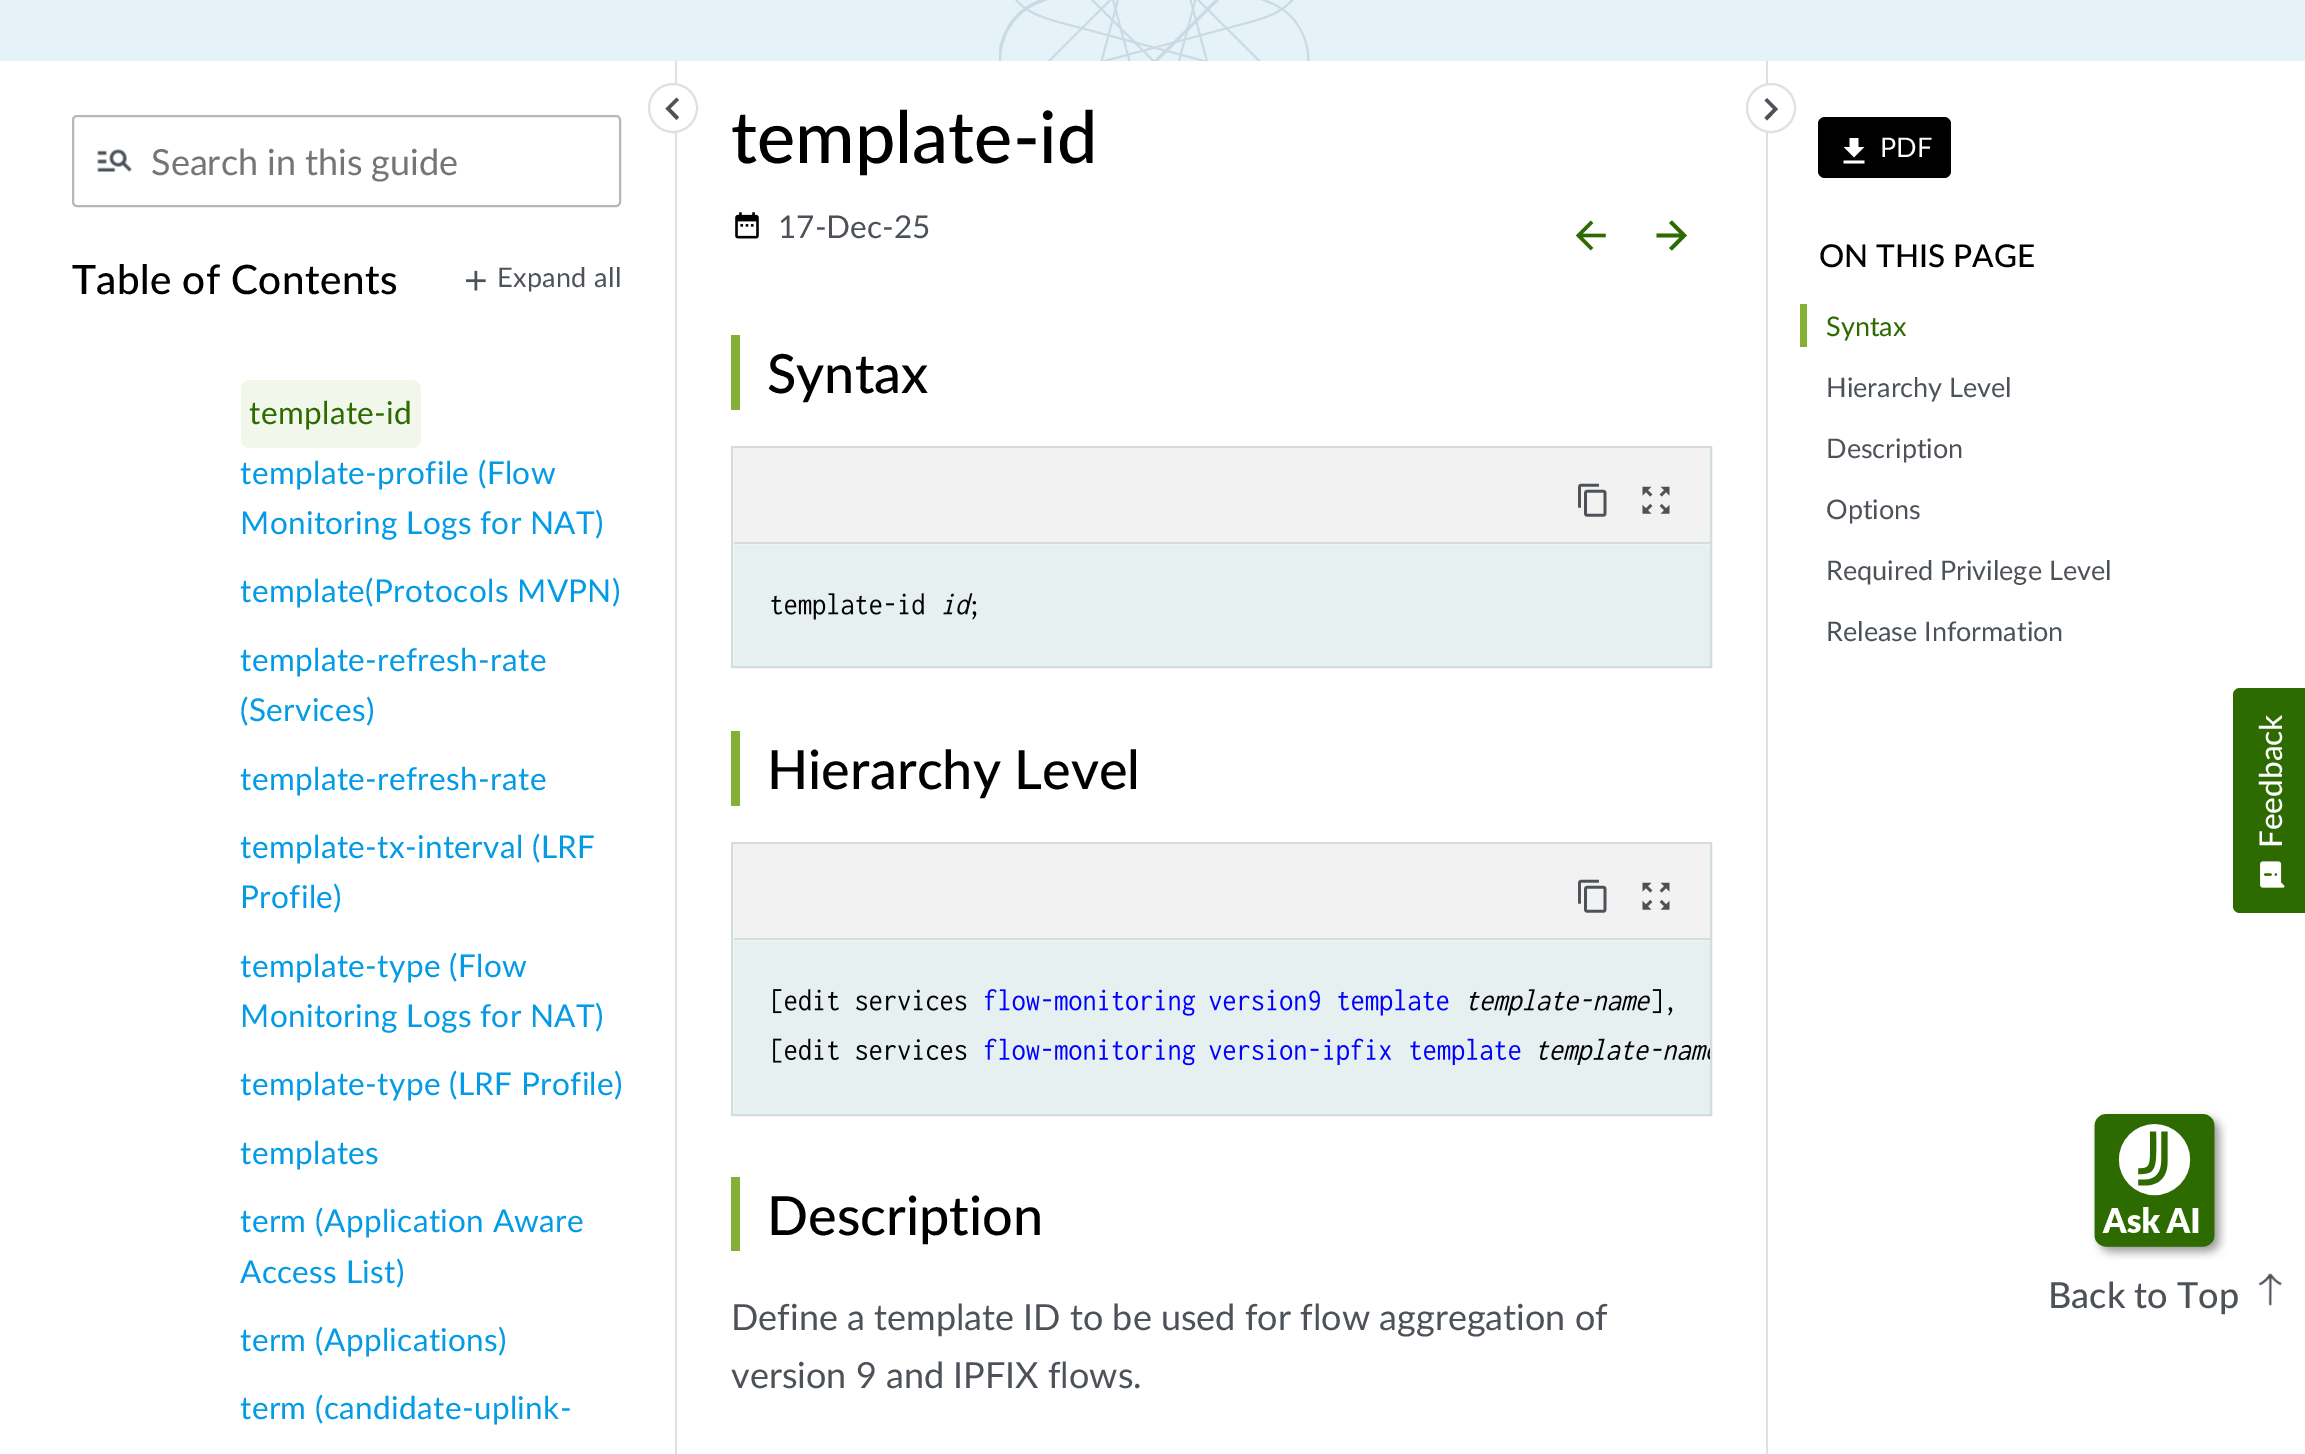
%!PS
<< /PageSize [2305 1454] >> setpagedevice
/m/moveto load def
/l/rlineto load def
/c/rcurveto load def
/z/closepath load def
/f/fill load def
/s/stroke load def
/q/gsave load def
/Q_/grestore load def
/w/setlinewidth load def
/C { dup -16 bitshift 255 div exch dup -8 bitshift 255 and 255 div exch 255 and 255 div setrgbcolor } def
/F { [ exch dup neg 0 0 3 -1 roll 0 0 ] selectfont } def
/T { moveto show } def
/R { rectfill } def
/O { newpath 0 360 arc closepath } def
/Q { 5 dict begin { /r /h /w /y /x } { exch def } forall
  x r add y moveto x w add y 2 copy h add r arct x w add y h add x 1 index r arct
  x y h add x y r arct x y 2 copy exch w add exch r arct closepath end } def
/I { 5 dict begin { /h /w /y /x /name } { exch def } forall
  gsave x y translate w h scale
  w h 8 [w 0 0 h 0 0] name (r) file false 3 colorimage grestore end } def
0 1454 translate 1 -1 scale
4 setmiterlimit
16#FFFFFF C
0 0 2305 1454 R
16#E5F2F8 C
0 0 2305 61 R
(1.rgb) 999 0 311 61 I
16#E0E0E0 C
675 61 2 1393 R
16#FFFFFF C
673 108 24 O q f Q_
16#E0E0E0 C
2 w
s
16#4D5259 C
679 117 m -2.5 3 l -11 -11.5 l 11 -11 l 2.5 2.5 l -8.5 8.5 l z f
16#B5B8B9 C
73 116 547 90 4 Q s
(2.rgb) 97 149 35 23 I
/Lato-Regular 36 F
16#757575 C
(Search in this guide) 151 175 T
/Lato-Medium 40.5 F
16#000000 C
72 294 m .35 0 (Table of Contents) ashow
(3.rgb) 466 270 20 21 I
/Lato-Regular 27 F
16#4D5259 C
497 287 m .35 0 (Expand all) ashow
16#F2F7EB C
241 380 180 68 9 Q f
/Lato-Regular 31.5 F
16#2D6A00 C
249 424 m .35 0 (template-id) ashow
16#039BE5 C
240 484 m .35 0 (template-profile \(Flow) ashow
240 534 m .35 0 (Monitoring Logs for NAT\)) ashow
240 602 m .35 0 (template\(Protocols MVPN\)) ashow
240 671 m .35 0 (template-refresh-rate) ashow
240 721 m .35 0 (\(Services\)) ashow
240 790 m .35 0 (template-refresh-rate) ashow
240 858 m .35 0 (template-tx-interval \(LRF) ashow
240 908 m .35 0 (Profile\)) ashow
240 977 m .35 0 (template-type \(Flow) ashow
240 1027 m .35 0 (Monitoring Logs for NAT\)) ashow
240 1095 m .35 0 (template-type \(LRF Profile\)) ashow
240 1164 m .35 0 (templates) ashow
240 1232 m .35 0 (term \(Application Aware) ashow
240 1283 m .35 0 (Access List\)) ashow
240 1351 m .35 0 (term \(Applications\)) ashow
240 1419 m .35 0 (term \(candidate-uplink-) ashow
/Lato-Medium 72 F
16#000000 C
(template-id) 731 163 T
(4.rgb) 735 212 24 27 I
/Lato-Regular 31.5 F
16#4D5259 C
(17-Dec-25) 778 238 T
(5.rgb) 1575 220 31 31 I
16#2D6A00 C
1672 220.5 m 15 15 l -15 15 l -3 -2.5 l 10.5 -10.5 l -23 0 l 0 -4 l 23 0 l -10.5 -10.5 l z f
16#84B135 C
731 335 9 75 R
/Lato-Medium 54 F
16#000000 C
(Syntax) 767 393 T
16#D4DDDD C
732 447 979 220 rectstroke
16#F2F2F2 C
734 448 976 97 R
16#D4DDDD C
734 542 976 2 R
(6.rgb) 1578 483 29 34 I
(7.rgb) 1642 486 28 28 I
16#E6F0F0 C
734 545 976 121 R
(8.rgb) 771 593 153 27 I
(9.rgb) 943 593 30 22 I
(10.rgb) 972 601 5 19 I
16#84B135 C
731 731 9 75 R
16#000000 C
(Hierarchy Level) 767 789 T
16#D4DDDD C
732 843 979 272 rectstroke
16#F2F2F2 C
734 844 976 97 R
16#D4DDDD C
734 938 976 2 R
(6.rgb) 1578 879 29 34 I
(7.rgb) 1642 882 28 28 I
16#E6F0F0 C
734 941 976 173 R
(11.rgb) 773 989 194 25 I
(12.rgb) 984 989 212 27 I
(13.rgb) 1209 989 111 22 I
(14.rgb) 1338 989 111 27 I
(15.rgb) 1469 989 181 27 I
(16.rgb) 1652 989 21 27 I
(17.rgb) 773 1038 194 25 I
(18.rgb) 984 1038 212 28 I
(19.rgb) 1209 1038 183 27 I
(20.rgb) 1410 1038 111 27 I
(21.rgb) 1539 1038 171 27 I
16#84B135 C
731 1177 9 74 R
16#000000 C
(Description) 767 1235 T
/Lato-Regular 36 F
16#4D5259 C
(Define a template ID to be used for flow aggregation of) 731 1330 T
(version 9 and IPFIX flows.) 731 1388 T
16#E0E0E0 C
1766 61 2 1393 R
16#FFFFFF C
1771 108 24 O q f Q_
16#E0E0E0 C
s
16#4D5259 C
1764.5 117.5 m 8.5 -8.5 l -8.5 -8.5 l 2.5 -2.5 l 11 11 l -11 11.5 l z f
16#000000 C
1818 117 133 61 7 Q f
(22.rgb) 1843 138 22 26 I
/Lato-Regular 27 F
16#FFFFFF C
(PDF) 1880 157 T
/Lato-Medium 31.5 F
16#000000 C
(ON THIS PAGE) 1819 267 T
16#84B135 C
1800 304 7 43 R
/Lato-Regular 27 F
16#2D6A00 C
(Syntax) 1826 336 T
16#4D5259 C
(Hierarchy Level) 1826 397 T
(Description) 1826 458 T
(Options) 1826 519 T
(Required Privilege Level) 1826 580 T
(Release Information) 1826 641 T
(23.rgb) 2092 1111 135 149 I
/Lato-Medium 36 F
(Back to Top) 2048 1308 T
(24.rgb) 2258 1273 24 33 I
16#2D6A00 C
2233 906 m 0 -211 l 0 -4 3 -7 7 -7 c 63 0 l 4 0 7 3 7 7 c 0 211 l 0 4 -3 7 -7 7 c -63 0 l -4 0 -7 -3 -7 -7 c z f
/Lato-Medium 31.5 F
16#FFFFFF C
q 2282 848 translate -90 rotate 0 0 m (Feedback) show Q_
(25.rgb) 2260 861 25 27 I
showpage
